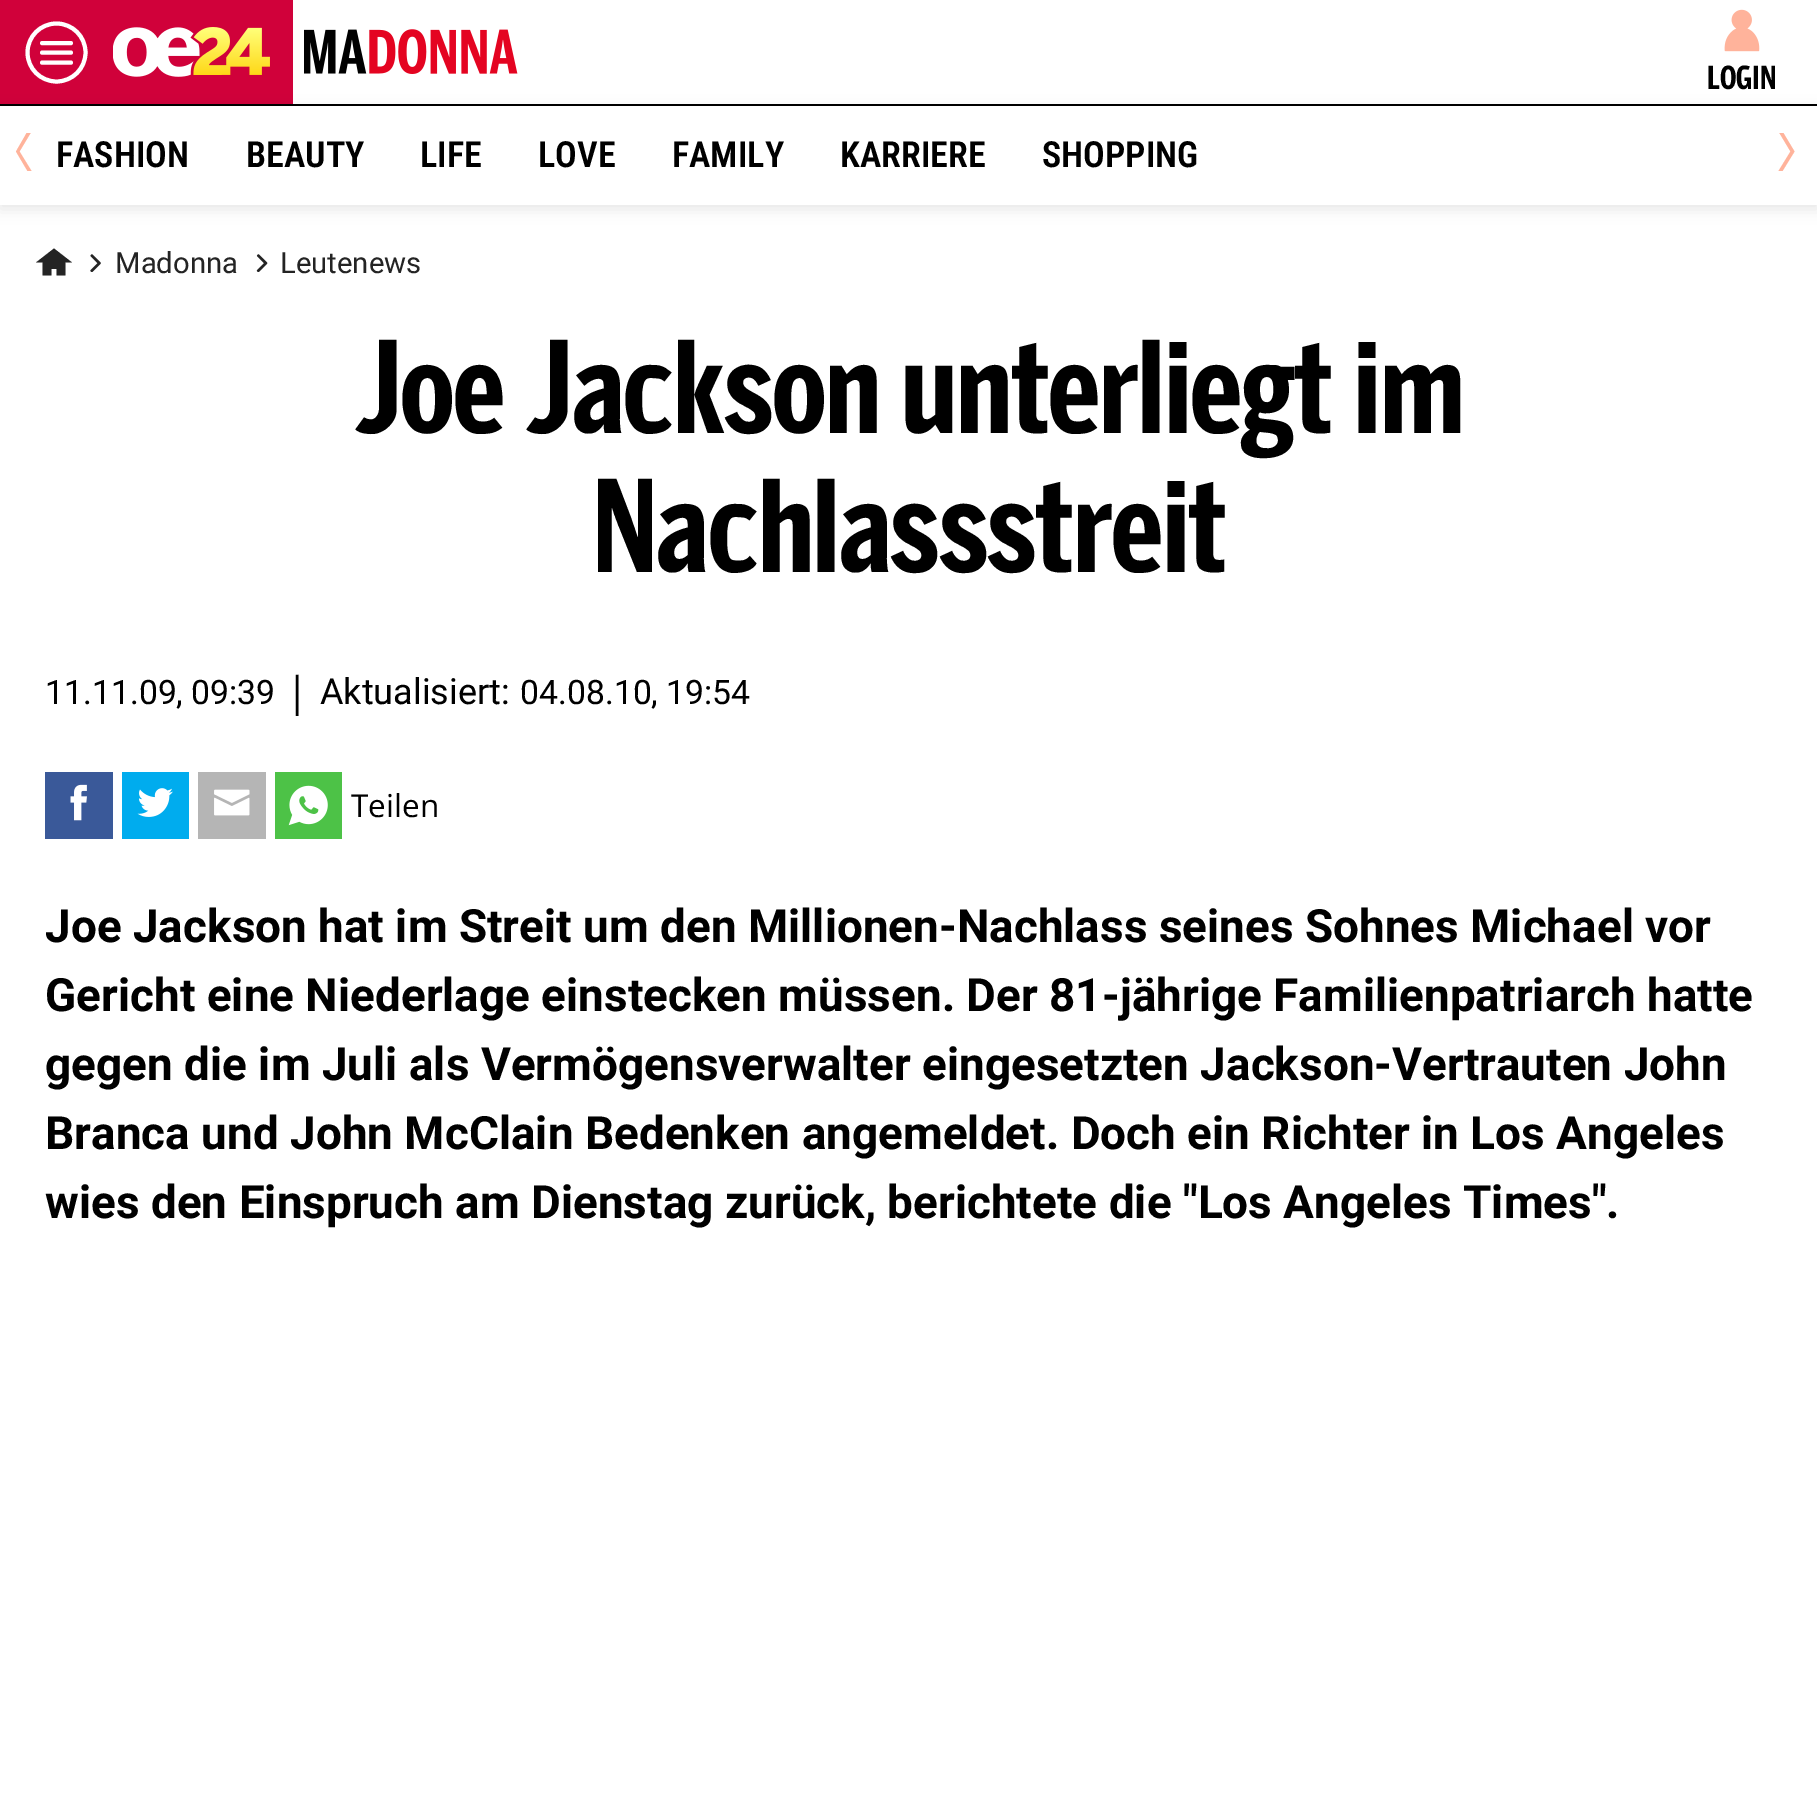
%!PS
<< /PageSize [1817 1809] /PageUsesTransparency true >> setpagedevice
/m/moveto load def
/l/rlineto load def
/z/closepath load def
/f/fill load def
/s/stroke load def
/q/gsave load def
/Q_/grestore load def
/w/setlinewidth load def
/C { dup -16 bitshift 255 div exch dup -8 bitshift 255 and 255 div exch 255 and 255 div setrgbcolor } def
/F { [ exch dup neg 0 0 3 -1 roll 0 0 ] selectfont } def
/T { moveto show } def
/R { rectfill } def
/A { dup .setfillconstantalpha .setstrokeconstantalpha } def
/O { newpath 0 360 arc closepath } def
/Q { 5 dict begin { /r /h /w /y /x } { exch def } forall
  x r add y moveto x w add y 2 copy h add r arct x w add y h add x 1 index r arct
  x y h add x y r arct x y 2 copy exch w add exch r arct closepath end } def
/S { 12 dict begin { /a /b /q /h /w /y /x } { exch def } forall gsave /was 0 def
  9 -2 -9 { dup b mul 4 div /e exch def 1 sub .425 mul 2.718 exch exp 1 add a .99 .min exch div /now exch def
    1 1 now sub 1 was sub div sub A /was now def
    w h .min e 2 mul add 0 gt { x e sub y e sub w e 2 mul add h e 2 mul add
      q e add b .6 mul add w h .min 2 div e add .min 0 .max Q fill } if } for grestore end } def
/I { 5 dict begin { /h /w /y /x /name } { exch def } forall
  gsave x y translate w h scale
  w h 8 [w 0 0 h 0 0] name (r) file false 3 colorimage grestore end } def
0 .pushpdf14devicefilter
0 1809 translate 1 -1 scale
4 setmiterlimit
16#FFFFFF C
0 0 1817 1809 R
16#000000 C
0 104 1817 2 R
16#D0013A C
0 0 293 104 R
16#FFFFFF C
4 w
56.5 52.5 29 O s
1 setlinecap
42 43 m 29 0 l 42 52.5 m 29 0 l 42 62.5 m 29 0 l s
(1.rgb) 113 27 157 50 I
(2.rgb) 304 29 214 45 I
(3.rgb) 1724 9 36 43 I
/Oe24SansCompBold-Bold 31.5 F
16#000000 C
(LOGIN) 1707 89 T
q
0 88 m 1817 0 l 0 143 l -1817 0 l z 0 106 m 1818 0 l 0 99 l -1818 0 l z eoclip newpath
0 110 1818 99 0 7 .1 S
Q_
q
16 133 40 40 rectclip
16#FFB39B C
16 151.5 m 11.5 19.5 l 4 0 l -12 -19.5 l 12 -20 l -4 0 l z f
Q_
16#FFFFFF C
34 204 1334 1 R
/RobotoCondensed-SemiBold 36 F
16#000000 C
(FASHION) 56 167 T
(BEAUTY) 246 167 T
(LIFE) 420 167 T
(LOVE) 538 167 T
(FAMILY) 672 167 T
(KARRIERE) 840 167 T
(SHOPPING) 1042 167 T
q
1755 133 41 40 rectclip
16#FFB39B C
1794.5 151.5 m -12 -20 l -4 0 l 12 20 l -12 19.5 l 4 0 l z f
Q_
16#242424 C
54 248.5 m 18 14 l -6.5 0 l 0 13 l -9 0 l 0 -6.5 l -5 0 l 0 6.5 l -9 0 l 0 -13 l -6.5 0 l z f
(4.rgb) 90 254 11 18 I
/Roboto-Regular 29.25 F
(Madonna) 115 273 T
(5.rgb) 256 254 12 18 I
(Leutenews) 280 273 T
/Oe24SansCompBold-Bold 126 F
16#000000 C
354 433 m -1.35 0 (Joe Jackson unterliegt im) ashow
592 572 m -1.35 0 (Nachlassstreit) ashow
/Roboto-Regular 33.75 F
(11.11.09, 09:39) 45 704 T
/OpenSans-Regular 41 F
(|) 286 706 T
/Roboto-Regular 36 F
(Aktualisiert:) 320 704 T
/Roboto-Regular 33.75 F
(04.08.10, 19:54) 520 704 T
16#3A5999 C
45 772 68 67 R
(6.rgb) 70 784 17 37 I
16#00ACEE C
122 772 67 67 R
(7.rgb) 137 788 36 29 I
16#B5B5B5 C
198 772 68 67 R
(8.rgb) 214 789 36 27 I
16#4DC247 C
275 772 67 67 R
(9.rgb) 288 785 40 41 I
/OpenSans-Regular 31.5 F
16#000000 C
(Teilen) 351 817 T
/Roboto-Bold 45.9 F
(Joe Jackson hat im Streit um den Millionen-Nachlass seines Sohnes Michael vor) 45 942 T
(Gericht eine Niederlage einstecken müssen. Der 81-jährige Familienpatriarch hatte) 45 1011 T
(gegen die im Juli als Vermögensverwalter eingesetzten Jackson-Vertrauten John) 45 1080 T
(Branca und John McClain Bedenken angemeldet. Doch ein Richter in Los Angeles) 45 1149 T
(wies den Einspruch am Dienstag zurück, berichtete die "Los Angeles Times".) 45 1218 T
.poppdf14devicefilter showpage
